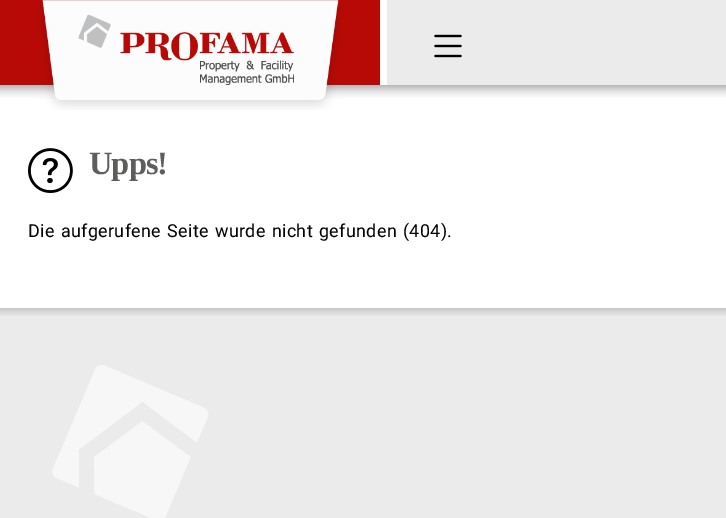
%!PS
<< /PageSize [726 518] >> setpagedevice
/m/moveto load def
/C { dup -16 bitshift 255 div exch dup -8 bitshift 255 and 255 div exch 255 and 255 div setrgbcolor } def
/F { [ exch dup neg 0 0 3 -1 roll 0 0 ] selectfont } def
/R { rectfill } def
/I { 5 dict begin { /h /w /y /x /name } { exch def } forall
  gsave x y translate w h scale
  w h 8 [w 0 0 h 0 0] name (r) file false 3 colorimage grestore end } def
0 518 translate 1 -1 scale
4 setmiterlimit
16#FFFFFF C
0 0 726 518 R
16#B70A06 C
0 0 380 85 R
(3.rgb) 0 85 726 13 I
(1.rgb) 38 0 305 110 I
16#EBEBEB C
387 0 339 85 R
(2.rgb) 434 34 28 24 I
(4.rgb) 28 148 45 45 I
/LiberationSerif-Bold 32.5 F
16#5E5E5C C
89 174 m -1 0 (Upps!) ashow
/Roboto-Regular 17.9 F
16#000000 C
28 237 m 1 0 32 .4 0 (Die aufgerufene Seite wurde nicht gefunden \(404\).) awidthshow
16#EBEBEB C
0 308 726 210 R
(5.rgb) 0 308 726 8 I
(6.rgb) 52 365 157 153 I
showpage
